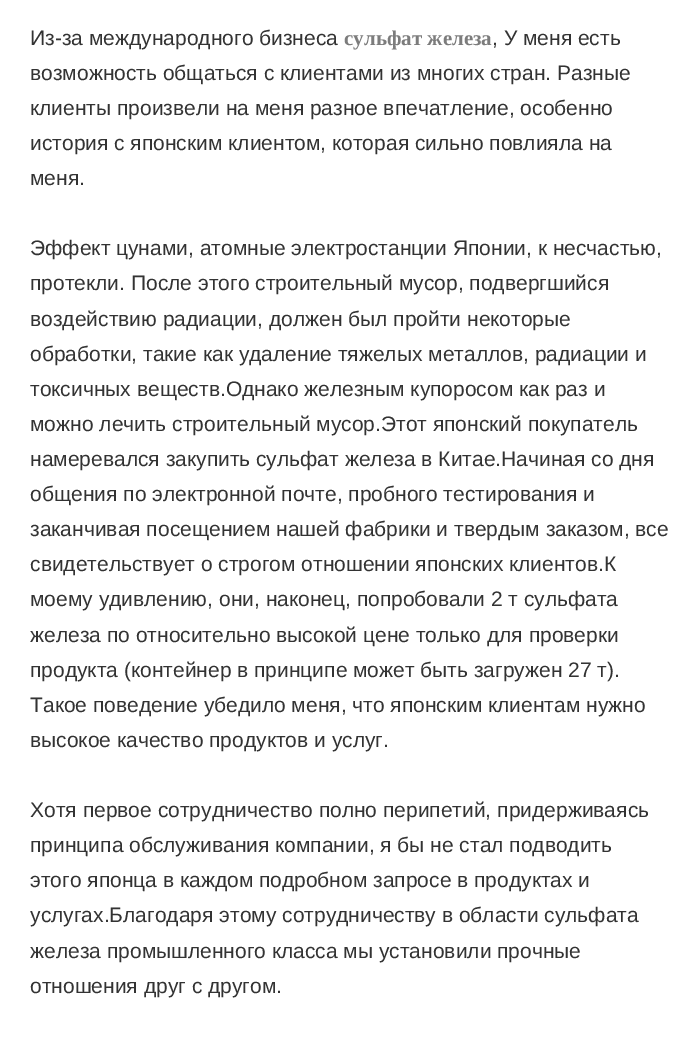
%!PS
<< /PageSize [698 1063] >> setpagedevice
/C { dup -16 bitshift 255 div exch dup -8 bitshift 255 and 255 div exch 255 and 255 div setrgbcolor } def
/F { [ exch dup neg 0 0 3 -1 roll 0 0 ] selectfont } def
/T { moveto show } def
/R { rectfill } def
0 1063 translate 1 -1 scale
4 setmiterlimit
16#FFFFFF C
0 0 698 1063 R
/LiberationSans-Regular 21 F
16#333333 C
(Из-за международного бизнеса) 30 45 T
/LiberationSerif-Bold 21 F
16#7C7C7C C
(сульфат железа) 344 45 T
/LiberationSans-Regular 21 F
16#333333 C
(, У меня есть) 492 45 T
(возможность общаться с клиентами из многих стран. Разные) 30 80 T
(клиенты произвели на меня разное впечатление, особенно) 30 115 T
(история с японским клиентом, которая сильно повлияла на) 30 150 T
(меня.) 30 185 T
(Эффект цунами, атомные электростанции Японии, к несчастью,) 30 255 T
(протекли. После этого строительный мусор, подвергшийся) 30 290 T
(воздействию радиации, должен был пройти некоторые) 30 326 T
(обработки, такие как удаление тяжелых металлов, радиации и) 30 361 T
(токсичных веществ.Однако железным купоросом как раз и) 30 396 T
(можно лечить строительный мусор.Этот японский покупатель) 30 431 T
(намеревался закупить сульфат железа в Китае.Начиная со дня) 30 466 T
(общения по электронной почте, пробного тестирования и) 30 501 T
(заканчивая посещением нашей фабрики и твердым заказом, все) 30 536 T
(свидетельствует о строгом отношении японских клиентов.К) 30 571 T
(моему удивлению, они, наконец, попробовали 2 т сульфата) 30 606 T
(железа по относительно высокой цене только для проверки) 30 642 T
(продукта \(контейнер в принципе может быть загружен 27 т\).) 30 677 T
(Такое поведение убедило меня, что японским клиентам нужно) 30 712 T
(высокое качество продуктов и услуг.) 30 747 T
(Хотя первое сотрудничество полно перипетий, придерживаясь) 30 817 T
(принципа обслуживания компании, я бы не стал подводить) 30 852 T
(этого японца в каждом подробном запросе в продуктах и) 30 887 T
(услугах.Благодаря этому сотрудничеству в области сульфата) 30 922 T
(железа промышленного класса мы установили прочные) 30 958 T
(отношения друг с другом.) 30 993 T
showpage
